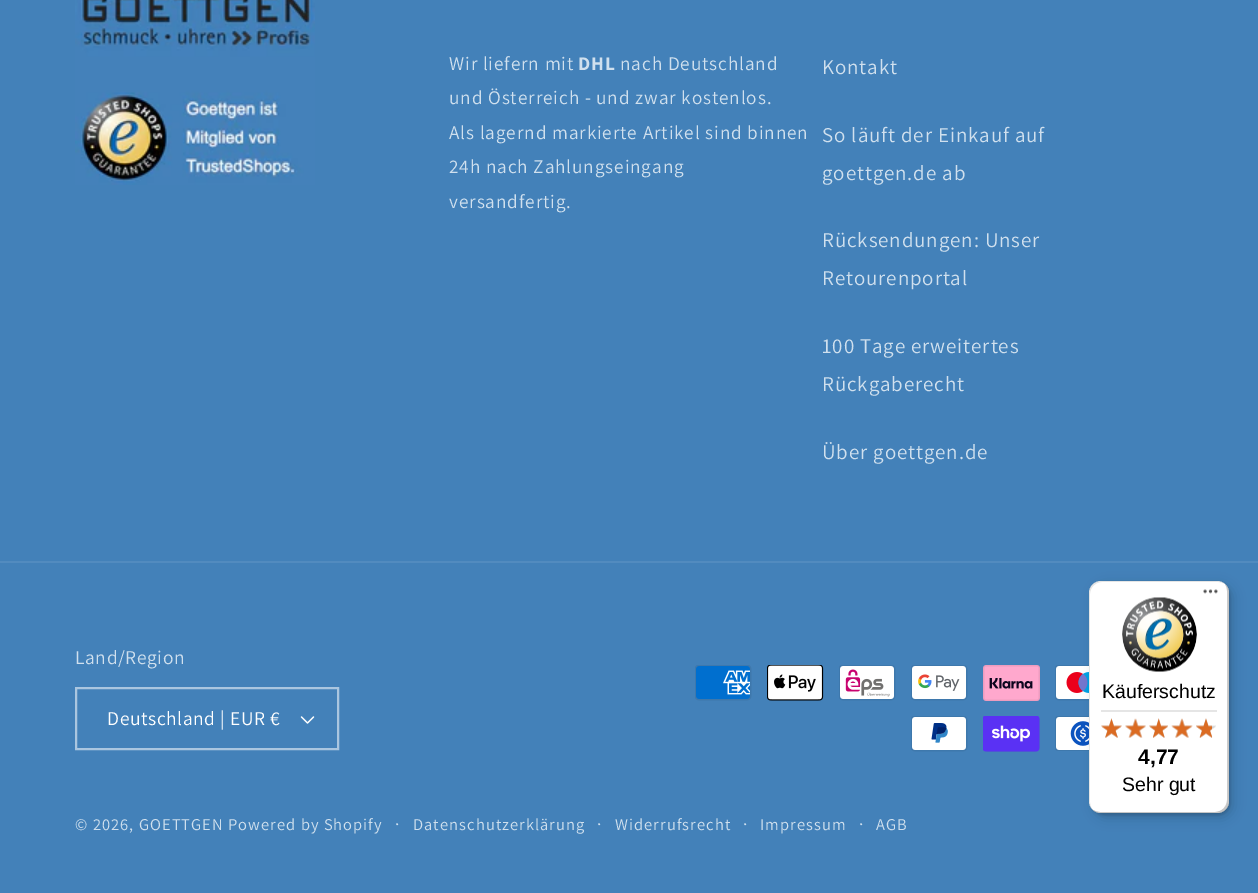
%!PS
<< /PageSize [1258 893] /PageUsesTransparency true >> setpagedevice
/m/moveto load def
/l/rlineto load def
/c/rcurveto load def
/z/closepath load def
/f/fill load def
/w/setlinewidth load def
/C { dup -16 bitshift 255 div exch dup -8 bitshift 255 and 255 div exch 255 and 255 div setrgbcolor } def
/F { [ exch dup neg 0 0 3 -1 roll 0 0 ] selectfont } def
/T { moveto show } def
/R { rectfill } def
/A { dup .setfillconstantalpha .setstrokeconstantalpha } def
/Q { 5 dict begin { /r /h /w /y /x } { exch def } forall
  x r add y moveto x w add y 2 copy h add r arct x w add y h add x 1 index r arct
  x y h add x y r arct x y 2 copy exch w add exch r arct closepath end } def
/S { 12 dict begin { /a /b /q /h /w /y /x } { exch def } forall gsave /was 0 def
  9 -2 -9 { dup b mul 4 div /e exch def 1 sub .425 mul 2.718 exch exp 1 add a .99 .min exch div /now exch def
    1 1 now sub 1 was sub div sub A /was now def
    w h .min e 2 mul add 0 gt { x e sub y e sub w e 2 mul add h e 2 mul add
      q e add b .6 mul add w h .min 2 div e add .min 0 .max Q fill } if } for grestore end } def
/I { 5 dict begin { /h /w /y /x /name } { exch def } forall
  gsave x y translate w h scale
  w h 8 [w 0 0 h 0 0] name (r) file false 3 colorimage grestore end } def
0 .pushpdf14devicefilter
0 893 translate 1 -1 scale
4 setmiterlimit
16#4381B9 C
0 0 1258 893 R
(1.rgb) 75 0 240 185 I
/Assistant-Regular 19.25 F
16#D0E0EE C
449 70 m .9 0 (Wir liefern mit) ashow
/Assistant-Bold 19.25 F
578 70 m .9 0 (DHL) ashow
/Assistant-Regular 19.25 F
620 70 m .9 0 (nach Deutschland) ashow
449 104 m .9 0 (und Österreich - und zwar kostenlos.) ashow
449 139 m .9 0 (Als lagernd markierte Artikel sind binnen) ashow
449 173 m .9 0 (24h nach Zahlungseingang) ashow
449 208 m .9 0 (versandfertig.) ashow
/Assistant-Regular 21 F
822 74 m .9 0 (Kontakt) ashow
822 142 m .9 0 (So läuft der Einkauf auf) ashow
822 180 m .9 0 (goettgen.de ab) ashow
822 247 m .9 0 (Rücksendungen: Unser) ashow
822 285 m .9 0 (Retourenportal) ashow
822 353 m .9 0 (100 Tage erweitertes) ashow
822 391 m .9 0 (Rückgaberecht) ashow
822 459 m .9 0 (Über goettgen.de) ashow
16#528BBF C
0 561 1258 2 R
/Assistant-Regular 19.5 F
16#D0E0EE C
75 664 m .6 0 (Land/Region) ashow
(2.rgb) 300 716 15 8 I
16#AAC6E0 C
2 w
76 688 262 61 rectstroke
16#FFFFFF C
107 725 m .6 0 (Deutschland | EUR €) ashow
(3.rgb) 695 665 57 36 I
(4.rgb) 767 665 57 36 I
(5.rgb) 839 665 57 36 I
(6.rgb) 911 665 57 36 I
(7.rgb) 983 665 57 36 I
(8.rgb) 1055 665 34 36 I
(9.rgb) 911 716 57 36 I
(10.rgb) 983 716 57 36 I
(11.rgb) 1055 716 34 35 I
/Assistant-Regular 16.5 F
16#D0E0EE C
75 830 m 1.05 0 (© 2026, GOETTGEN) ashow
228 830 m 1.05 0 (Powered by Shopify) ashow
/Assistant-Regular 18 F
395 830 m 1.05 0 (·) ashow
/Assistant-Regular 16.5 F
413 830 m 1.05 0 (Datenschutzerklärung) ashow
/Assistant-Regular 18 F
597 830 m 1.05 0 (·) ashow
/Assistant-Regular 16.5 F
615 830 m 1.05 0 (Widerrufsrecht) ashow
/Assistant-Regular 18 F
743 830 m 1.05 0 (·) ashow
/Assistant-Regular 16.5 F
760 830 m 1.05 0 (Impressum) ashow
/Assistant-Regular 18 F
859 830 m 1.05 0 (·) ashow
/Assistant-Regular 16.5 F
876 830 m 1.05 0 (AGB) ashow
16#000000 C
1094 585 139 233 12 6 .15 S
1091 582 139 233 12 1.5 .15 S
16#FFFFFF C
1089 581 140 232 12 Q f
0.1 A
16#000000 C
1102 582 m 116 0 l 3 0 5 1 7 2 c -2 -2 -5 -3 -8 -3 c -116 0 l -7 0 -12 5 -12 12 c 0 208 l 0 4 2 7 4 9 c -2 -2 -3 -5 -3 -8 c 0 -208 l 0 -7 6 -12 12 -12 c z f
0.2 A
1092 809 m 2 2 5 4 9 4 c 116 0 l 7 0 12 -5 12 -12 c 0 -208 l 0 -4 -2 -7 -4 -9 c 1 2 2 4 2 7 c 0 209 l 0 6 -5 12 -12 12 c -115 0 l -3 0 -6 -1 -8 -3 c z f
16#323232 C
1093 810 m 2 2 5 3 8 3 c 116 0 l 7 0 12 -5 12 -12 c 0 -208 l 0 -4 -2 -7 -4 -9 c 2 2 3 5 3 8 c 0 208 l 0 7 -6 12 -12 12 c -116 0 l -3 0 -5 -1 -7 -2 c z f
0.3 A
16#FFFFFF C
1092 809 m 2 2 5 4 9 4 c 116 0 l 7 0 12 -5 12 -12 c 0 -208 l 0 -4 -2 -7 -4 -9 c 2 2 3 5 3 8 c 0 208 l 0 7 -6 12 -12 12 c -116 0 l -3 0 -6 -1 -8 -3 c z f
1 A
(12.rgb) 1203 589 15 5 I
(13.rgb) 1122 597 75 75 I
/LiberationSans-Regular 19.5 F
16#000000 C
(Käuferschutz) 1102 698 T
16#E5E5E5 C
1101 710 116 2 R
(14.rgb) 1101 718 21 20 I
(15.rgb) 1125 719 21 19 I
(16.rgb) 1149 718 19 20 I
(17.rgb) 1172 719 20 19 I
(18.rgb) 1196 718 20 20 I
(19.rgb) 1101 718 21 20 I
(20.rgb) 1125 718 21 20 I
(21.rgb) 1149 718 19 20 I
(22.rgb) 1171 718 22 20 I
(23.rgb) 1196 718 16 20 I
/LiberationSans-Bold 21 F
16#000000 C
(4,77) 1138 764 T
/LiberationSans-Regular 19.5 F
(Sehr gut) 1122 791 T
.poppdf14devicefilter showpage
